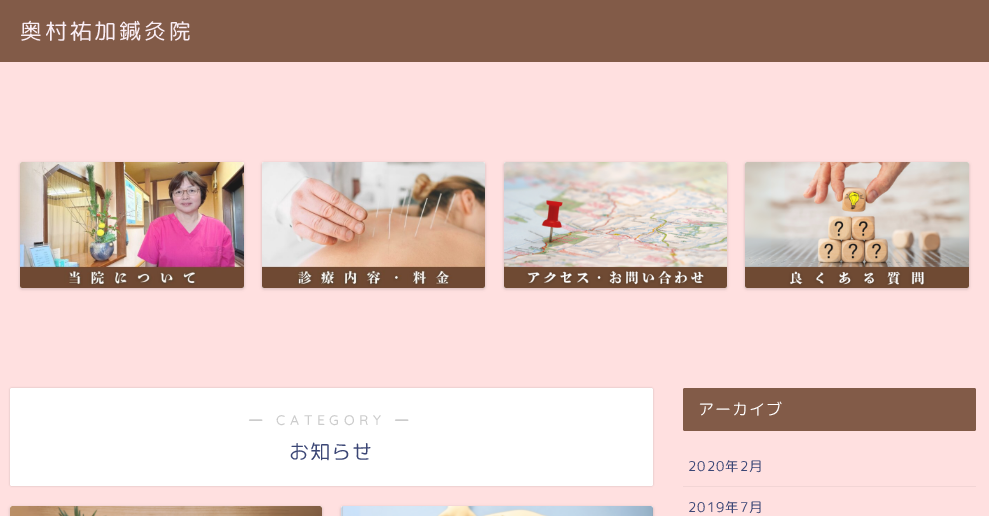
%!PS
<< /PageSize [989 516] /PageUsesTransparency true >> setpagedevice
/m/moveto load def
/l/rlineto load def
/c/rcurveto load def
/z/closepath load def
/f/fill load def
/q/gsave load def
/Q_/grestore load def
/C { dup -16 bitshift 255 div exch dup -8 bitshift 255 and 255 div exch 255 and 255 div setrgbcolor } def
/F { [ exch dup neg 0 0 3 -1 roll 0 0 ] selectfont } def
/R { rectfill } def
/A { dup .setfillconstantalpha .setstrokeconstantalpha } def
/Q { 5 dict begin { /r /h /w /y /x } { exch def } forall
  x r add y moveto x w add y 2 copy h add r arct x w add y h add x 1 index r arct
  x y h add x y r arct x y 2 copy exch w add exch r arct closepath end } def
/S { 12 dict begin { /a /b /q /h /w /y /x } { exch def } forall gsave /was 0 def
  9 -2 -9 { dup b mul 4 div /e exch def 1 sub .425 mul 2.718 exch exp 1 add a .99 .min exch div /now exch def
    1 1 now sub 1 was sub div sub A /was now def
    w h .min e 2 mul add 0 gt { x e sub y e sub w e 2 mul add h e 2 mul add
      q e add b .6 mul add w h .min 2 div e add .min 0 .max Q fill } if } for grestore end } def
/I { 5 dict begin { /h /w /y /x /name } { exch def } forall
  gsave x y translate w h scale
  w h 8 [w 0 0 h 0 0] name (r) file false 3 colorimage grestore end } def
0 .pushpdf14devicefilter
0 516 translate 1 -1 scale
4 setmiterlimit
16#FFE0E0 C
0 0 989 516 R
16#825B48 C
0 0 989 62 R
/RoundedMplus1c-Regular 21.75 F
16#F9EDF5 C
20 39 m 3 0 (奥村祐加鍼灸院) ashow
q
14 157 m 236 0 l 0 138 l -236 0 l z 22 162 m 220 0 l 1 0 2 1 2 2 c 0 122 l 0 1 -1 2 -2 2 c -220 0 l -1 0 -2 -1 -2 -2 c 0 -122 l 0 -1 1 -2 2 -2 c z eoclip newpath
16#000000 C
20 163 224 126 2 1.5 .18 S
Q_
(1.rgb) 20 162 224 126 I
q
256 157 m 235 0 l 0 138 l -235 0 l z 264 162 m 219 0 l 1 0 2 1 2 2 c 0 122 l 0 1 -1 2 -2 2 c -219 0 l -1 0 -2 -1 -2 -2 c 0 -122 l 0 -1 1 -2 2 -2 c z eoclip newpath
16#000000 C
262 163 223 126 2 1.5 .18 S
Q_
(2.rgb) 262 162 223 126 I
q
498 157 m 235 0 l 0 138 l -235 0 l z 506 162 m 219 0 l 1 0 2 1 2 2 c 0 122 l 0 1 -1 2 -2 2 c -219 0 l -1 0 -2 -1 -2 -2 c 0 -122 l 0 -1 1 -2 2 -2 c z eoclip newpath
16#000000 C
504 163 223 126 2 1.5 .18 S
Q_
(3.rgb) 504 162 223 126 I
q
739 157 m 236 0 l 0 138 l -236 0 l z 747 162 m 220 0 l 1 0 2 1 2 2 c 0 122 l 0 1 -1 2 -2 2 c -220 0 l -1 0 -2 -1 -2 -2 c 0 -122 l 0 -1 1 -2 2 -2 c z eoclip newpath
16#000000 C
745 163 224 126 2 1.5 .18 S
Q_
(4.rgb) 745 162 224 126 I
16#000000 C
10 388 643 98 2 1 .18 S
16#FFFFFF C
10 388 643 98 2 Q f
/RoundedMplus1cBold-Bold 13.5 F
16#CCCCCC C
249 425 m 5 0 (―) ashow
/Quicksand-Bold 13.5 F
276 425 m 5 0 (CATEGORY) ashow
/RoundedMplus1cBold-Bold 13.5 F
395 425 m 5 0 (―) ashow
/RoundedMplus1c-Regular 20 F
16#3B4675 C
289 459 m 1 0 (お知らせ) ashow
16#000000 C
10 507 312 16 2 1.5 .18 S
(5.rgb) 10 506 312 10 I
341 507 312 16 2 1.5 .18 S
(6.rgb) 341 506 312 10 I
16#825B48 C
683 388 293 43 2 Q f
/RoundedMplus1c-Regular 16 F
16#FFFFFF C
698 415 m 1 0 (アーカイブ) ashow
16#F2D5D5 C
683 486 293 1 R
/RoundedMplus1c-Regular 13.5 F
16#3B4675 C
688 471 m 1 0 (2020年2月) ashow
688 512 m 1 0 (2019年7月) ashow
.poppdf14devicefilter showpage
